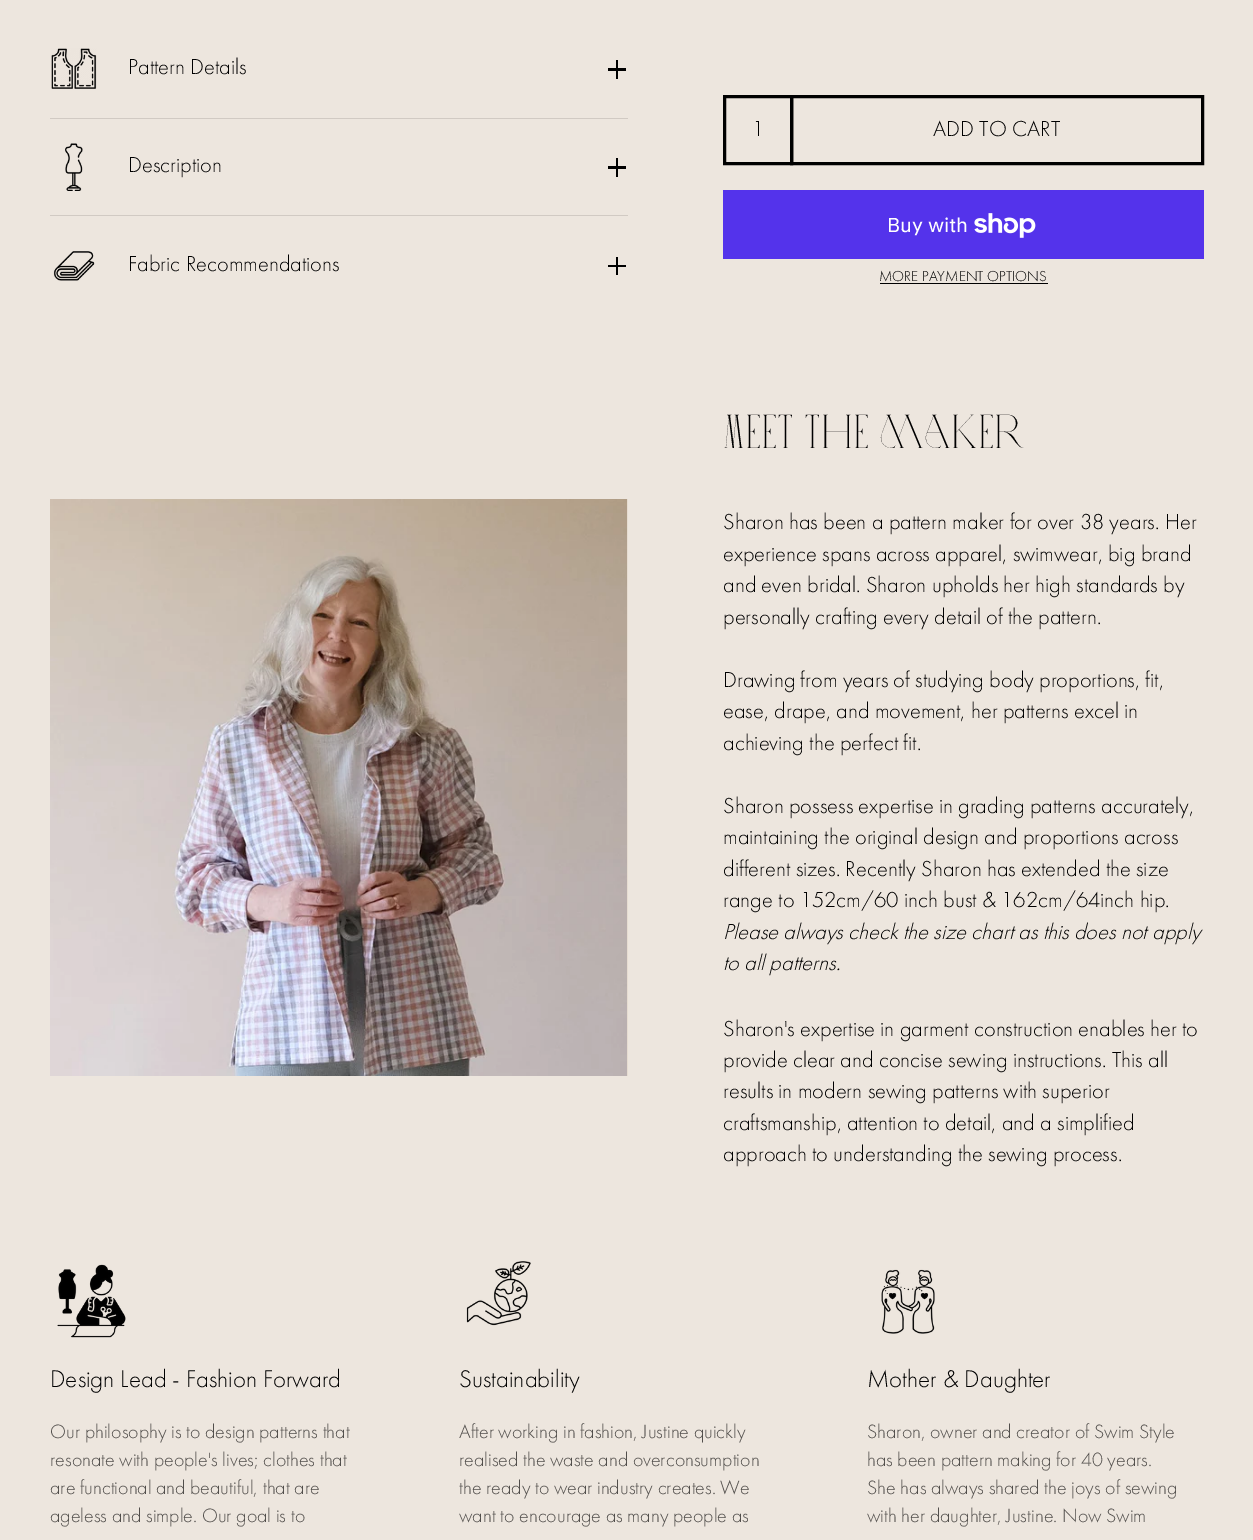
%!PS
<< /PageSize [1253 1540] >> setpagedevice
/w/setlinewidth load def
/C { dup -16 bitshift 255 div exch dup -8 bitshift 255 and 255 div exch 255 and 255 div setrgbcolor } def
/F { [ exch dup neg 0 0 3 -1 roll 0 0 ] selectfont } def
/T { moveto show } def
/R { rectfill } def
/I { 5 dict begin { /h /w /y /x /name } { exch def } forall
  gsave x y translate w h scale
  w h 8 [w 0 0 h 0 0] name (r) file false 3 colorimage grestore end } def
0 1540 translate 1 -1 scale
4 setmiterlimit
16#EDE6DE C
0 0 1253 1540 R
(1.rgb) 51 48 46 41 I
/FuturaPT-Light 22.5 F
16#000000 C
(Pattern Details) 128 74 T
608 68 18 3 R
616 60 2 19 R
16#D1CAC3 C
50 118 578 1 R
(2.rgb) 65 143 18 48 I
16#000000 C
(Description) 128 172 T
608 166 18 3 R
616 158 2 19 R
16#D1CAC3 C
50 215 578 1 R
(3.rgb) 53 251 42 30 I
16#000000 C
(Fabric Recommendations) 128 271 T
608 265 18 2 R
616 257 2 18 R
3 w
724.5 96.5 67 67 rectstroke
(1) 752 136 T
791.5 96.5 411 67 rectstroke
(ADD TO CART) 933 136 T
16#5433EB C
723 190 481 69 R
/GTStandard-Regular 20 F
16#FFFFFF C
(Buy with) 887 232 T
(4.rgb) 974 213 62 25 I
/FuturaPT-Light 15 F
16#000000 C
(MORE PAYMENT OPTIONS) 879 281 T
880 283 168 1 R
(5.rgb) 50 499 577 577 I
16#E6DCD1 C
627 499 1 577 R
/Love-Regular 47.5 F
16#000000 C
(Meet the maker) 723 448 T
/FuturaPT-Light 22.5 F
(Sharon has been a pattern maker for over 38 years. Her) 723 529 T
(experience spans across apparel, swimwear, big brand) 723 561 T
(and even bridal. Sharon upholds her high standards by) 723 592 T
(personally crafting every detail of the pattern.) 723 624 T
(Drawing from years of studying body proportions, fit,) 723 687 T
(ease, drape, and movement, her patterns excel in) 723 718 T
(achieving the perfect fit.) 723 750 T
(Sharon possess expertise in grading patterns accurately,) 723 813 T
(maintaining the original design and proportions across) 723 844 T
(different sizes. Recently Sharon has extended the size) 723 876 T
(range to 152cm/60 inch bust & 162cm/64inch hip.) 723 907 T
/FuturaPT-LightItalic 22.5 F
(Please always check the size chart as this does not apply) 723 939 T
(to all patterns.) 723 970 T
/FuturaPT-Light 22.5 F
(Sharon's expertise in garment construction enables her to) 723 1036 T
(provide clear and concise sewing instructions. This all) 723 1067 T
(results in modern sewing patterns with superior) 723 1098 T
(craftsmanship, attention to detail, and a simplified) 723 1130 T
(approach to understanding the sewing process.) 723 1161 T
(6.rgb) 57 1264 69 74 I
/FuturaPT-Light 25 F
(Design Lead - Fashion Forward) 50 1387 T
/FuturaPT-Light 20 F
16#514E4B C
(Our philosophy is to design patterns that) 50 1438 T
(resonate with people's lives; clothes that) 50 1466 T
(are functional and beautiful, that are) 50 1494 T
(ageless and simple. Our goal is to) 50 1522 T
(7.rgb) 466 1261 65 65 I
/FuturaPT-Light 25 F
16#000000 C
(Sustainability) 459 1387 T
/FuturaPT-Light 20 F
16#514E4B C
(After working in fashion, Justine quickly) 459 1438 T
(realised the waste and overconsumption) 459 1466 T
(the ready to wear industry creates. We) 459 1494 T
(want to encourage as many people as) 459 1522 T
(8.rgb) 881 1269 54 65 I
/FuturaPT-Light 25 F
16#000000 C
(Mother & Daughter) 867 1387 T
/FuturaPT-Light 20 F
16#514E4B C
(Sharon, owner and creator of Swim Style) 867 1438 T
(has been pattern making for 40 years.) 867 1466 T
(She has always shared the joys of sewing) 867 1494 T
(with her daughter, Justine. Now Swim) 867 1522 T
showpage
